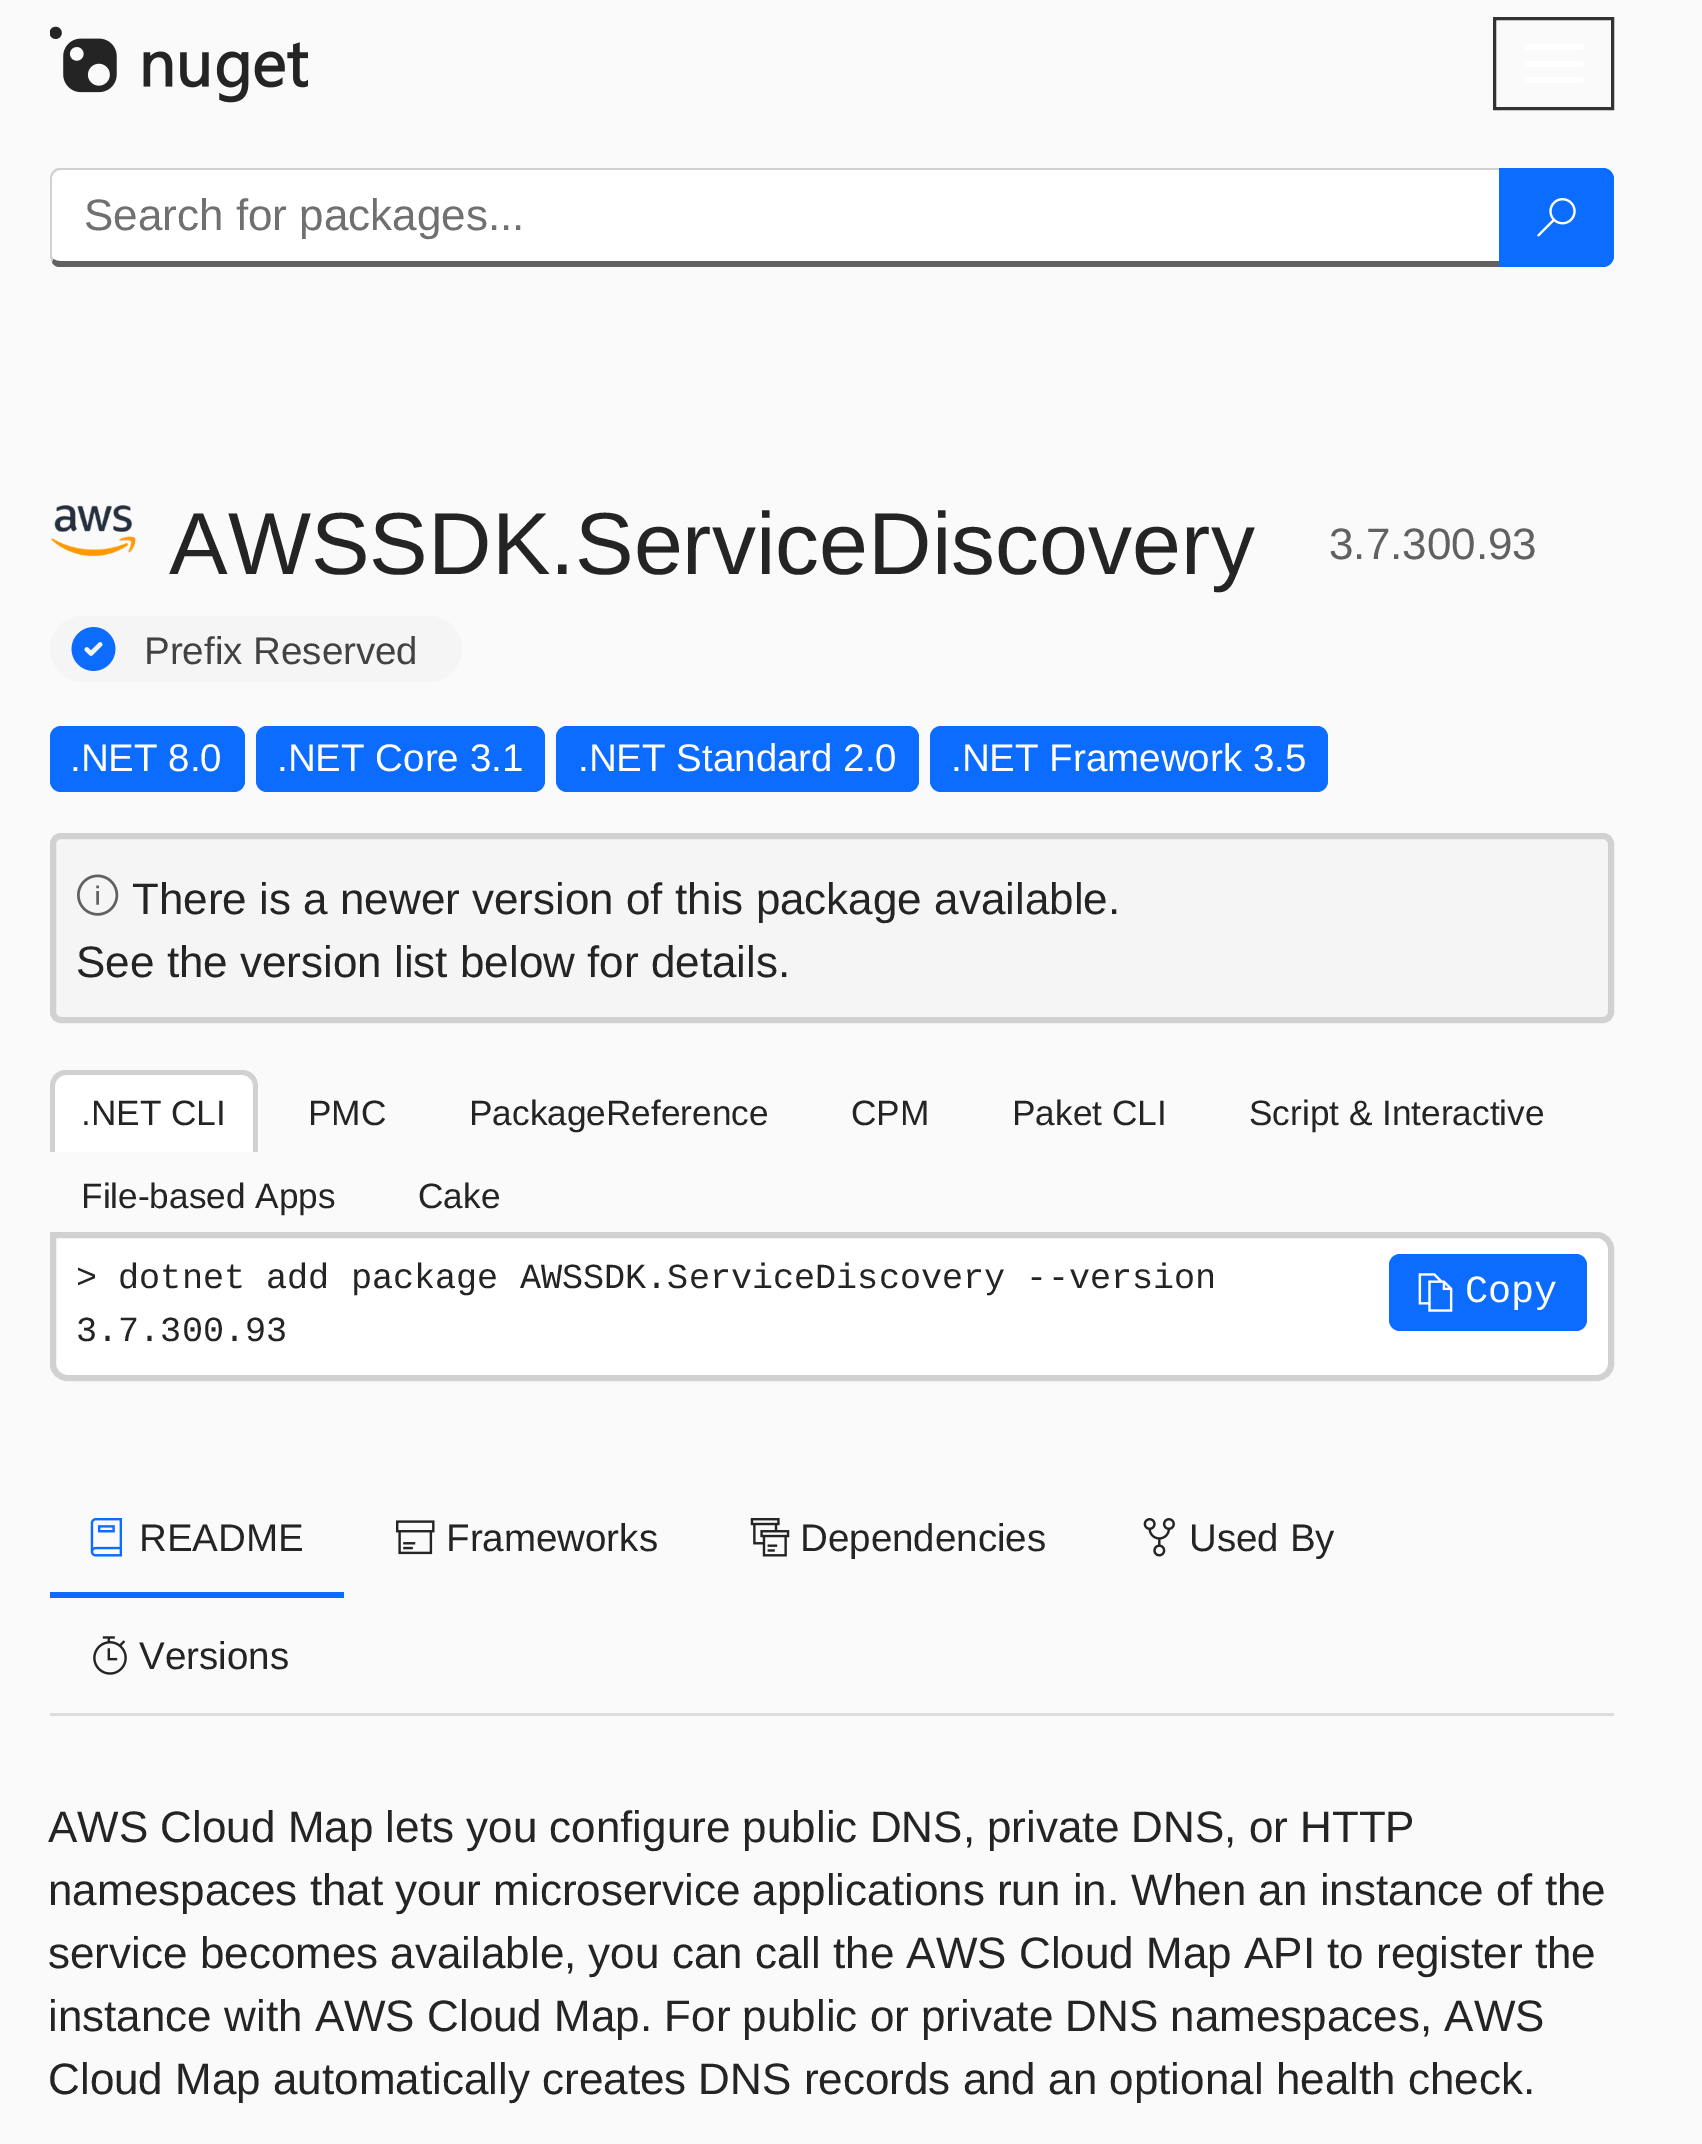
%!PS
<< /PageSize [1702 2144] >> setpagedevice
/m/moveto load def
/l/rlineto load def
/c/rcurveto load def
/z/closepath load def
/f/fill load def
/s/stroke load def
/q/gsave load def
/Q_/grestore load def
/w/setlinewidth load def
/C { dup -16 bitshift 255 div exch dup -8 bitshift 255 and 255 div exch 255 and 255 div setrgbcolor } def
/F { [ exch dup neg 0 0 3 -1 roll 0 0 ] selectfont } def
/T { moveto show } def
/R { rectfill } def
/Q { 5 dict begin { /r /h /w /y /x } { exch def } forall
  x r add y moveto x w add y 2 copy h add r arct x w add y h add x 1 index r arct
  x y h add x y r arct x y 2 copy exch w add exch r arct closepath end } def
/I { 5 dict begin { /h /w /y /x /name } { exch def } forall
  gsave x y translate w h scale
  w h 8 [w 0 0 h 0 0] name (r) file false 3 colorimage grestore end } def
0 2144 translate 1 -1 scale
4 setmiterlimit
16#FAFAFA C
0 0 1702 2144 R
(1.rgb) 50 26 258 77 I
16#333333 C
3 w
1494.5 18.5 118 90 rectstroke
16#FFFFFF C
1524 44 60 6 3 Q f
1524 61 60 6 3 Q f
1524 77 60 6 3 Q f
60 170 m 1439 0 l 0 91 l -1439 0 l -4 0 -8 -2 -8 -5 c 0 -77 l 0 -5 4 -9 8 -9 c z f
16#D1D1D1 C
60 168 m -3 0 -5 1 -7 3 c 1 2 l 2 -2 4 -3 6 -3 c 1439 0 l 2 -2 l z f
16#616161 C
1502 267 m -1444 0 l -3 -1 -5 -2 -6 -5 c 1 -3 l 2 1 4 2 7 2 c 1439 0 l z f
16#D1D1D1 C
53 171 m -2 2 -3 5 -3 8 c 0 77 l 0 2 1 5 2 6 c 1 -3 l -1 -3 l 0 -79 l 2 -4 l z f
/LiberationSans-Regular 44 F
16#707070 C
(Search for packages...) 84 230 T
16#0B6CFF C
1499 168 m 104 0 l 6 0 11 5 11 11 c 0 77 l 0 6 -5 11 -11 11 c -104 0 l z f
(2.rgb) 1537 198 39 39 I
(3.rgb) 51 505 85 52 I
/LiberationSans-Regular 88 F
16#242424 C
(AWSSDK.ServiceDiscovery) 169 574 T
/LiberationSans-Regular 44 F
16#616161 C
(3.7.300.93) 1329 559 T
16#F5F5F5 C
50 616 412 66 33 Q f
(4.rgb) 71 627 45 44 I
/LiberationSans-Regular 38.5 F
16#424242 C
(Prefix Reserved) 144 664 T
16#0B6CFF C
50 726 195 66 11 Q f
16#FFFFFF C
(.NET 8.0) 70 771 T
16#0B6CFF C
256 726 289 66 11 Q f
16#FFFFFF C
(.NET Core 3.1) 277 771 T
16#0B6CFF C
556 726 363 66 11 Q f
16#FFFFFF C
(.NET Standard 2.0) 578 771 T
16#0B6CFF C
930 726 398 66 11 Q f
16#FFFFFF C
(.NET Framework 3.5) 951 771 T
16#F5F5F5 C
53 836 1558 184 8 Q q f Q_
16#D1D1D1 C
6 w
s
(5.rgb) 77 874 42 42 I
/LiberationSans-Regular 44 F
16#242424 C
(There is a newer version of this package available.) 132 914 T
(See the version list below for details.) 76 977 T
16#FFFFFF C
67 1070 m 175 0 l 9.5 0 17 7.5 17 17 c 0 65 l -209 0 l 0 -65 l 0 -9.5 7.5 -17 17 -17 c z f
16#D1D1D1 C
66 1070 m 176 0 l 9 0 16 7 16 16 c 0 66 l -208 0 l 0 -66 l 0 -9 7 -16 16 -16 c z 66 1075 m 176 0 l 6 0 11 5 11 11 c 0 66 l -198 0 l 0 -66 l 0 -6 5 -11 11 -11 c z eofill
/LiberationSans-Regular 35.2 F
16#242424 C
(.NET CLI) 81 1125 T
(PMC) 308 1125 T
(PackageReference) 469 1125 T
(CPM) 851 1125 T
(Paket CLI) 1012 1125 T
(Script & Interactive) 1249 1125 T
(File-based Apps) 81 1208 T
(Cake) 418 1208 T
16#FFFFFF C
53 1235 m 1544 0 l 7.5 0 14 6.5 14 14 c 0 115 l 0 7.5 -6.5 14 -14 14 c -1530 0 l -7.5 0 -14 -6.5 -14 -14 c z q f Q_
16#D1D1D1 C
s
/LiberationMono-Regular 35.2 F
16#242424 C
(> dotnet add package AWSSDK.ServiceDiscovery --version) 76 1288 T
(3.7.300.93) 76 1341 T
16#0B6CFF C
1389 1254 198 77 11 Q f
(6.rgb) 1418 1273 35 39 I
/LiberationMono-Regular 38.5 F
16#FFFFFF C
(Copy) 1465 1302 T
16#DDDDDD C
50 1713 1564 3 R
16#0B6CFF C
50 1592 294 6 R
(7.rgb) 90 1518 33 39 I
/LiberationSans-Regular 38.5 F
16#242424 C
(README) 139 1551 T
(8.rgb) 396 1520 39 35 I
(Frameworks) 446 1551 T
(9.rgb) 750 1518 40 39 I
(Dependencies) 800 1551 T
(10.rgb) 1143 1518 32 39 I
(Used By) 1189 1551 T
(11.rgb) 93 1636 34 39 I
(Versions) 139 1669 T
/LiberationSans-Regular 44 F
(AWS Cloud Map lets you configure public DNS, private DNS, or HTTP) 48 1842 T
(namespaces that your microservice applications run in. When an instance of the) 48 1905 T
(service becomes available, you can call the AWS Cloud Map API to register the) 48 1968 T
(instance with AWS Cloud Map. For public or private DNS namespaces, AWS) 48 2031 T
(Cloud Map automatically creates DNS records and an optional health check.) 48 2094 T
showpage
